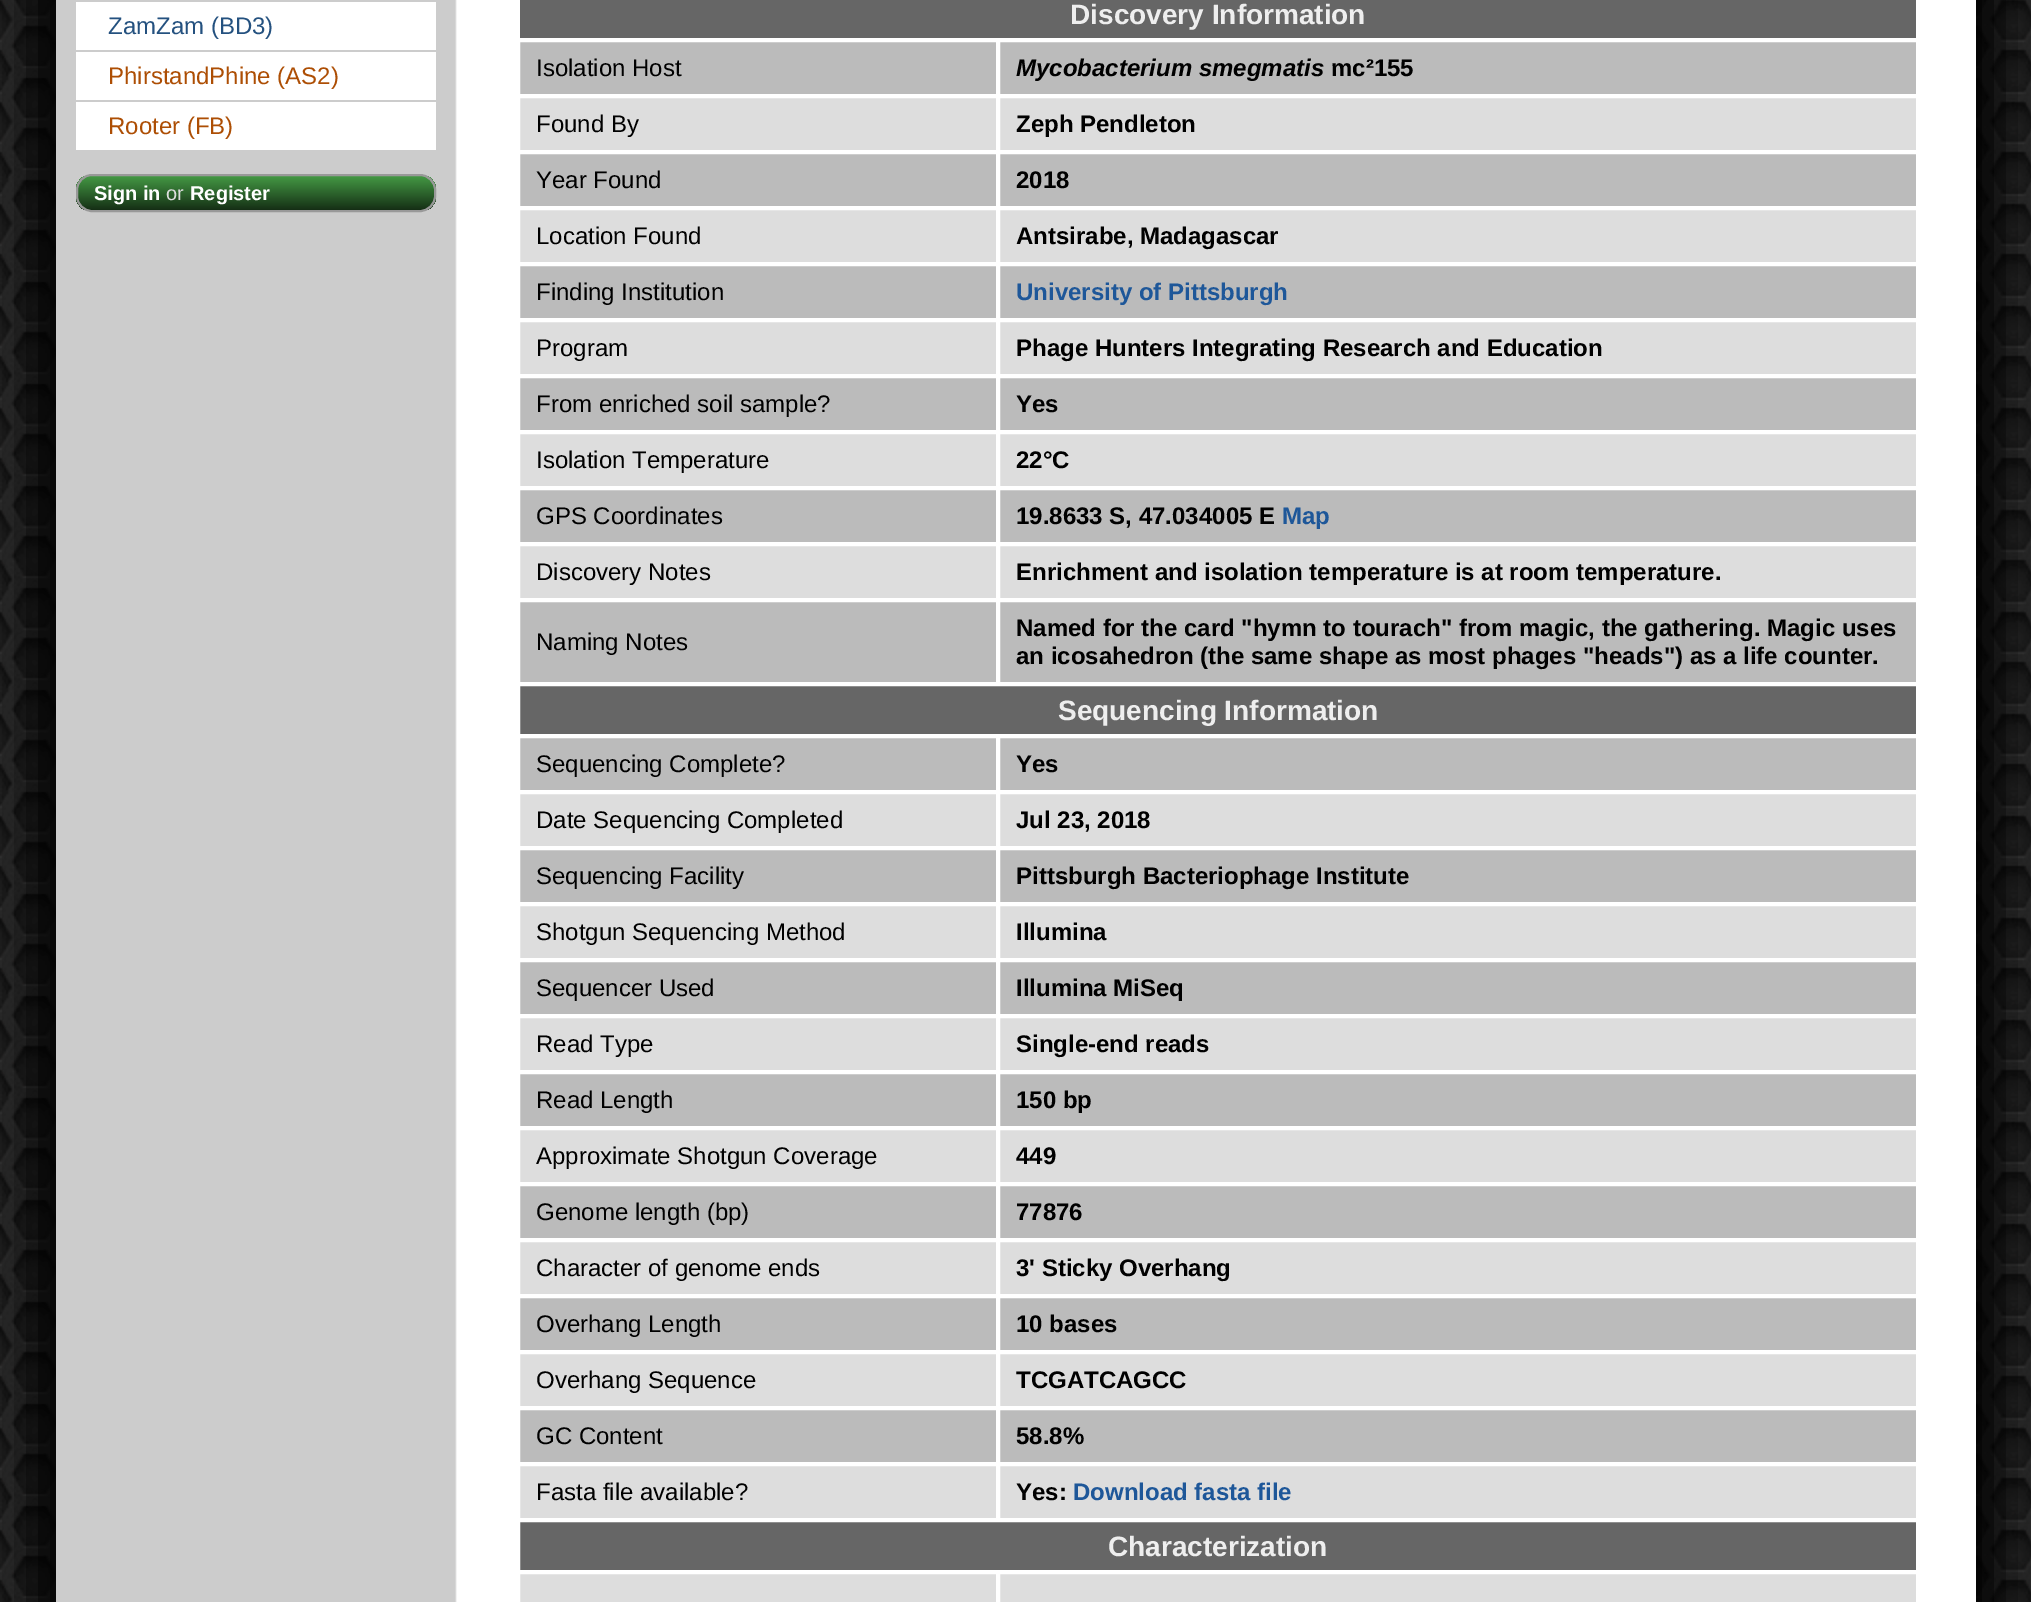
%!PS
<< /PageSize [2031 1602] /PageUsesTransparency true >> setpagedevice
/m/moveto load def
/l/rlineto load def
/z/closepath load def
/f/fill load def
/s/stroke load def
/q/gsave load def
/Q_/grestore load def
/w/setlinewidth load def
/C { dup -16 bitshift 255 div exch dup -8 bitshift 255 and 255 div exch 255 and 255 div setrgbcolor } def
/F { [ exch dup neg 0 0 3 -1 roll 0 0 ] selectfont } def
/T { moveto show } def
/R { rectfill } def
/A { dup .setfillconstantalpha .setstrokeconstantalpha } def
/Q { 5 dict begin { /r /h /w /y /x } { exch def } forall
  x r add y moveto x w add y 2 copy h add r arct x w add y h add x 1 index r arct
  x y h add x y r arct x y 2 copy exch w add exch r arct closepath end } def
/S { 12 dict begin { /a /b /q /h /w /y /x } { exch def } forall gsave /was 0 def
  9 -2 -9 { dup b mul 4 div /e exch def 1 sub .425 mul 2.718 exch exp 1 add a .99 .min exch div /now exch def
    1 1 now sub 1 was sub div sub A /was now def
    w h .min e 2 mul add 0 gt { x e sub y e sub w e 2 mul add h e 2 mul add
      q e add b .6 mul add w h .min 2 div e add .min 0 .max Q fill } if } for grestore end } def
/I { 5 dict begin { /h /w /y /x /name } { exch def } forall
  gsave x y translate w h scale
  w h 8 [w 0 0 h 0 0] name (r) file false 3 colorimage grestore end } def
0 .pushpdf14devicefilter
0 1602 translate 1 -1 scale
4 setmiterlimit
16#FFFFFF C
0 0 2031 1602 R
(1.rgb) 0 0 2031 1602 I
16#000000 C
32 -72 1968 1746 0 24 1 S
16#FFFFFF C
457 0 1519 1602 R
(2.rgb) 56 0 401 1602 I
76 2 360 48 R
/LiberationSans-Regular 24 F
16#24517F C
(ZamZam \(BD3\)) 108 34 T
16#FFFFFF C
76 52 360 48 R
16#AD4E04 C
(PhirstandPhine \(AS2\)) 108 84 T
16#FFFFFF C
76 102 360 48 R
16#AD4E04 C
(Rooter \(FB\)) 108 134 T
q
76 174 360 38 16 Q clip newpath
q 76 176 m 360 0 l 0 34 l -360 0 l z clip newpath
<< /ShadingType 2 /ColorSpace /DeviceRGB /Coords [78 176 78 210] /Extend [true true] /Function << /FunctionType 2 /Domain [0 1] /C0 [.267 .6 .267] /C1 [.082 .184 .082] /N 1 >> >> shfill Q_
Q_
16#999999 C
2 w
77 175 358 36 15 Q s
/LiberationSans-Bold 20 F
16#FFFFFF C
(Sign in) 94 200 T
/LiberationSans-Regular 20 F
16#DDDDDD C
(or) 166 200 T
/LiberationSans-Bold 20 F
16#FFFFFF C
(Register) 190 200 T
16#DDDDDD C
520 98 1396 1504 R
16#666666 C
520 0 1396 38 R
/LiberationSans-Bold 28 F
16#EEEEEE C
(Discovery Information) 1070 24 T
16#BBBBBB C
520 42 1396 52 R
16#FFFFFF C
519 41 478 54 rectstroke
/LiberationSans-Regular 24 F
16#000000 C
(Isolation Host) 536 76 T
16#FFFFFF C
999 41 918 54 rectstroke
/LiberationSans-BoldItalic 24 F
16#000000 C
(Mycobacterium smegmatis) 1016 76 T
/LiberationSans-Bold 24 F
(mc²155) 1331 76 T
16#FFFFFF C
519 97 478 54 rectstroke
/LiberationSans-Regular 24 F
16#000000 C
(Found By) 536 132 T
16#FFFFFF C
999 97 918 54 rectstroke
/LiberationSans-Bold 24 F
16#000000 C
(Zeph Pendleton) 1016 132 T
16#BBBBBB C
520 154 1396 52 R
16#FFFFFF C
519 153 478 54 rectstroke
/LiberationSans-Regular 24 F
16#000000 C
(Year Found) 536 188 T
16#FFFFFF C
999 153 918 54 rectstroke
/LiberationSans-Bold 24 F
16#000000 C
(2018) 1016 188 T
16#FFFFFF C
519 209 478 54 rectstroke
/LiberationSans-Regular 24 F
16#000000 C
(Location Found) 536 244 T
16#FFFFFF C
999 209 918 54 rectstroke
/LiberationSans-Bold 24 F
16#000000 C
(Antsirabe, Madagascar) 1016 244 T
16#BBBBBB C
520 266 1396 52 R
16#FFFFFF C
519 265 478 54 rectstroke
/LiberationSans-Regular 24 F
16#000000 C
(Finding Institution) 536 300 T
16#FFFFFF C
999 265 918 54 rectstroke
/LiberationSans-Bold 24 F
16#1E5799 C
(University of Pittsburgh) 1016 300 T
16#FFFFFF C
519 321 478 54 rectstroke
/LiberationSans-Regular 24 F
16#000000 C
(Program) 536 356 T
16#FFFFFF C
999 321 918 54 rectstroke
/LiberationSans-Bold 24 F
16#000000 C
(Phage Hunters Integrating Research and Education) 1016 356 T
16#BBBBBB C
520 378 1396 52 R
16#FFFFFF C
519 377 478 54 rectstroke
/LiberationSans-Regular 24 F
16#000000 C
(From enriched soil sample?) 536 412 T
16#FFFFFF C
999 377 918 54 rectstroke
/LiberationSans-Bold 24 F
16#000000 C
(Yes) 1016 412 T
16#FFFFFF C
519 433 478 54 rectstroke
/LiberationSans-Regular 24 F
16#000000 C
(Isolation Temperature) 536 468 T
16#FFFFFF C
999 433 918 54 rectstroke
/LiberationSans-Bold 24 F
16#000000 C
(22°C) 1016 468 T
16#BBBBBB C
520 490 1396 52 R
16#FFFFFF C
519 489 478 54 rectstroke
/LiberationSans-Regular 24 F
16#000000 C
(GPS Coordinates) 536 524 T
16#FFFFFF C
999 489 918 54 rectstroke
/LiberationSans-Bold 24 F
16#000000 C
(19.8633 S, 47.034005 E) 1016 524 T
16#1E5799 C
(Map) 1282 524 T
16#FFFFFF C
519 545 478 54 rectstroke
/LiberationSans-Regular 24 F
16#000000 C
(Discovery Notes) 536 580 T
16#FFFFFF C
999 545 918 54 rectstroke
/LiberationSans-Bold 24 F
16#000000 C
(Enrichment and isolation temperature is at room temperature.) 1016 580 T
16#BBBBBB C
520 602 1396 80 R
16#FFFFFF C
519 601 478 82 rectstroke
/LiberationSans-Regular 24 F
16#000000 C
(Naming Notes) 536 650 T
16#FFFFFF C
999 601 918 82 rectstroke
/LiberationSans-Bold 24 F
16#000000 C
(Named for the card "hymn to tourach" from magic, the gathering. Magic uses) 1016 636 T
(an icosahedron \(the same shape as most phages "heads"\) as a life counter.) 1016 664 T
16#666666 C
519 685 m 1398 0 l 0 50 l -1398 0 l z q f Q_
16#FFFFFF C
s
/LiberationSans-Bold 28 F
16#EEEEEE C
(Sequencing Information) 1058 720 T
16#BBBBBB C
520 738 1396 52 R
16#FFFFFF C
519 737 478 54 rectstroke
/LiberationSans-Regular 24 F
16#000000 C
(Sequencing Complete?) 536 772 T
16#FFFFFF C
999 737 918 54 rectstroke
/LiberationSans-Bold 24 F
16#000000 C
(Yes) 1016 772 T
16#FFFFFF C
519 793 478 54 rectstroke
/LiberationSans-Regular 24 F
16#000000 C
(Date Sequencing Completed) 536 828 T
16#FFFFFF C
999 793 918 54 rectstroke
/LiberationSans-Bold 24 F
16#000000 C
(Jul 23, 2018) 1016 828 T
16#BBBBBB C
520 850 1396 52 R
16#FFFFFF C
519 849 478 54 rectstroke
/LiberationSans-Regular 24 F
16#000000 C
(Sequencing Facility) 536 884 T
16#FFFFFF C
999 849 918 54 rectstroke
/LiberationSans-Bold 24 F
16#000000 C
(Pittsburgh Bacteriophage Institute) 1016 884 T
16#FFFFFF C
519 905 478 54 rectstroke
/LiberationSans-Regular 24 F
16#000000 C
(Shotgun Sequencing Method) 536 940 T
16#FFFFFF C
999 905 918 54 rectstroke
/LiberationSans-Bold 24 F
16#000000 C
(Illumina) 1016 940 T
16#BBBBBB C
520 962 1396 52 R
16#FFFFFF C
519 961 478 54 rectstroke
/LiberationSans-Regular 24 F
16#000000 C
(Sequencer Used) 536 996 T
16#FFFFFF C
999 961 918 54 rectstroke
/LiberationSans-Bold 24 F
16#000000 C
(Illumina MiSeq) 1016 996 T
16#FFFFFF C
519 1017 478 54 rectstroke
/LiberationSans-Regular 24 F
16#000000 C
(Read Type) 536 1052 T
16#FFFFFF C
999 1017 918 54 rectstroke
/LiberationSans-Bold 24 F
16#000000 C
(Single-end reads) 1016 1052 T
16#BBBBBB C
520 1074 1396 52 R
16#FFFFFF C
519 1073 478 54 rectstroke
/LiberationSans-Regular 24 F
16#000000 C
(Read Length) 536 1108 T
16#FFFFFF C
999 1073 918 54 rectstroke
/LiberationSans-Bold 24 F
16#000000 C
(150 bp) 1016 1108 T
16#FFFFFF C
519 1129 478 54 rectstroke
/LiberationSans-Regular 24 F
16#000000 C
(Approximate Shotgun Coverage) 536 1164 T
16#FFFFFF C
999 1129 918 54 rectstroke
/LiberationSans-Bold 24 F
16#000000 C
(449) 1016 1164 T
16#BBBBBB C
520 1186 1396 52 R
16#FFFFFF C
519 1185 478 54 rectstroke
/LiberationSans-Regular 24 F
16#000000 C
(Genome length \(bp\)) 536 1220 T
16#FFFFFF C
999 1185 918 54 rectstroke
/LiberationSans-Bold 24 F
16#000000 C
(77876) 1016 1220 T
16#FFFFFF C
519 1241 478 54 rectstroke
/LiberationSans-Regular 24 F
16#000000 C
(Character of genome ends) 536 1276 T
16#FFFFFF C
999 1241 918 54 rectstroke
/LiberationSans-Bold 24 F
16#000000 C
(3' Sticky Overhang) 1016 1276 T
16#BBBBBB C
520 1298 1396 52 R
16#FFFFFF C
519 1297 478 54 rectstroke
/LiberationSans-Regular 24 F
16#000000 C
(Overhang Length) 536 1332 T
16#FFFFFF C
999 1297 918 54 rectstroke
/LiberationSans-Bold 24 F
16#000000 C
(10 bases) 1016 1332 T
16#FFFFFF C
519 1353 478 54 rectstroke
/LiberationSans-Regular 24 F
16#000000 C
(Overhang Sequence) 536 1388 T
16#FFFFFF C
999 1353 918 54 rectstroke
/LiberationSans-Bold 24 F
16#000000 C
(TCGATCAGCC) 1016 1388 T
16#BBBBBB C
520 1410 1396 52 R
16#FFFFFF C
519 1409 478 54 rectstroke
/LiberationSans-Regular 24 F
16#000000 C
(GC Content) 536 1444 T
16#FFFFFF C
999 1409 918 54 rectstroke
/LiberationSans-Bold 24 F
16#000000 C
(58.8%) 1016 1444 T
16#FFFFFF C
519 1465 478 54 rectstroke
/LiberationSans-Regular 24 F
16#000000 C
(Fasta file available?) 536 1500 T
16#FFFFFF C
999 1465 918 54 rectstroke
/LiberationSans-Bold 24 F
16#000000 C
(Yes:) 1016 1500 T
16#1E5799 C
(Download fasta file) 1073 1500 T
16#666666 C
519 1521 m 1398 0 l 0 50 l -1398 0 l z q f Q_
16#FFFFFF C
s
/LiberationSans-Bold 28 F
16#EEEEEE C
(Characterization) 1108 1556 T
16#FFFFFF C
519 1573 478 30 rectstroke
999 1573 918 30 rectstroke
.poppdf14devicefilter showpage
